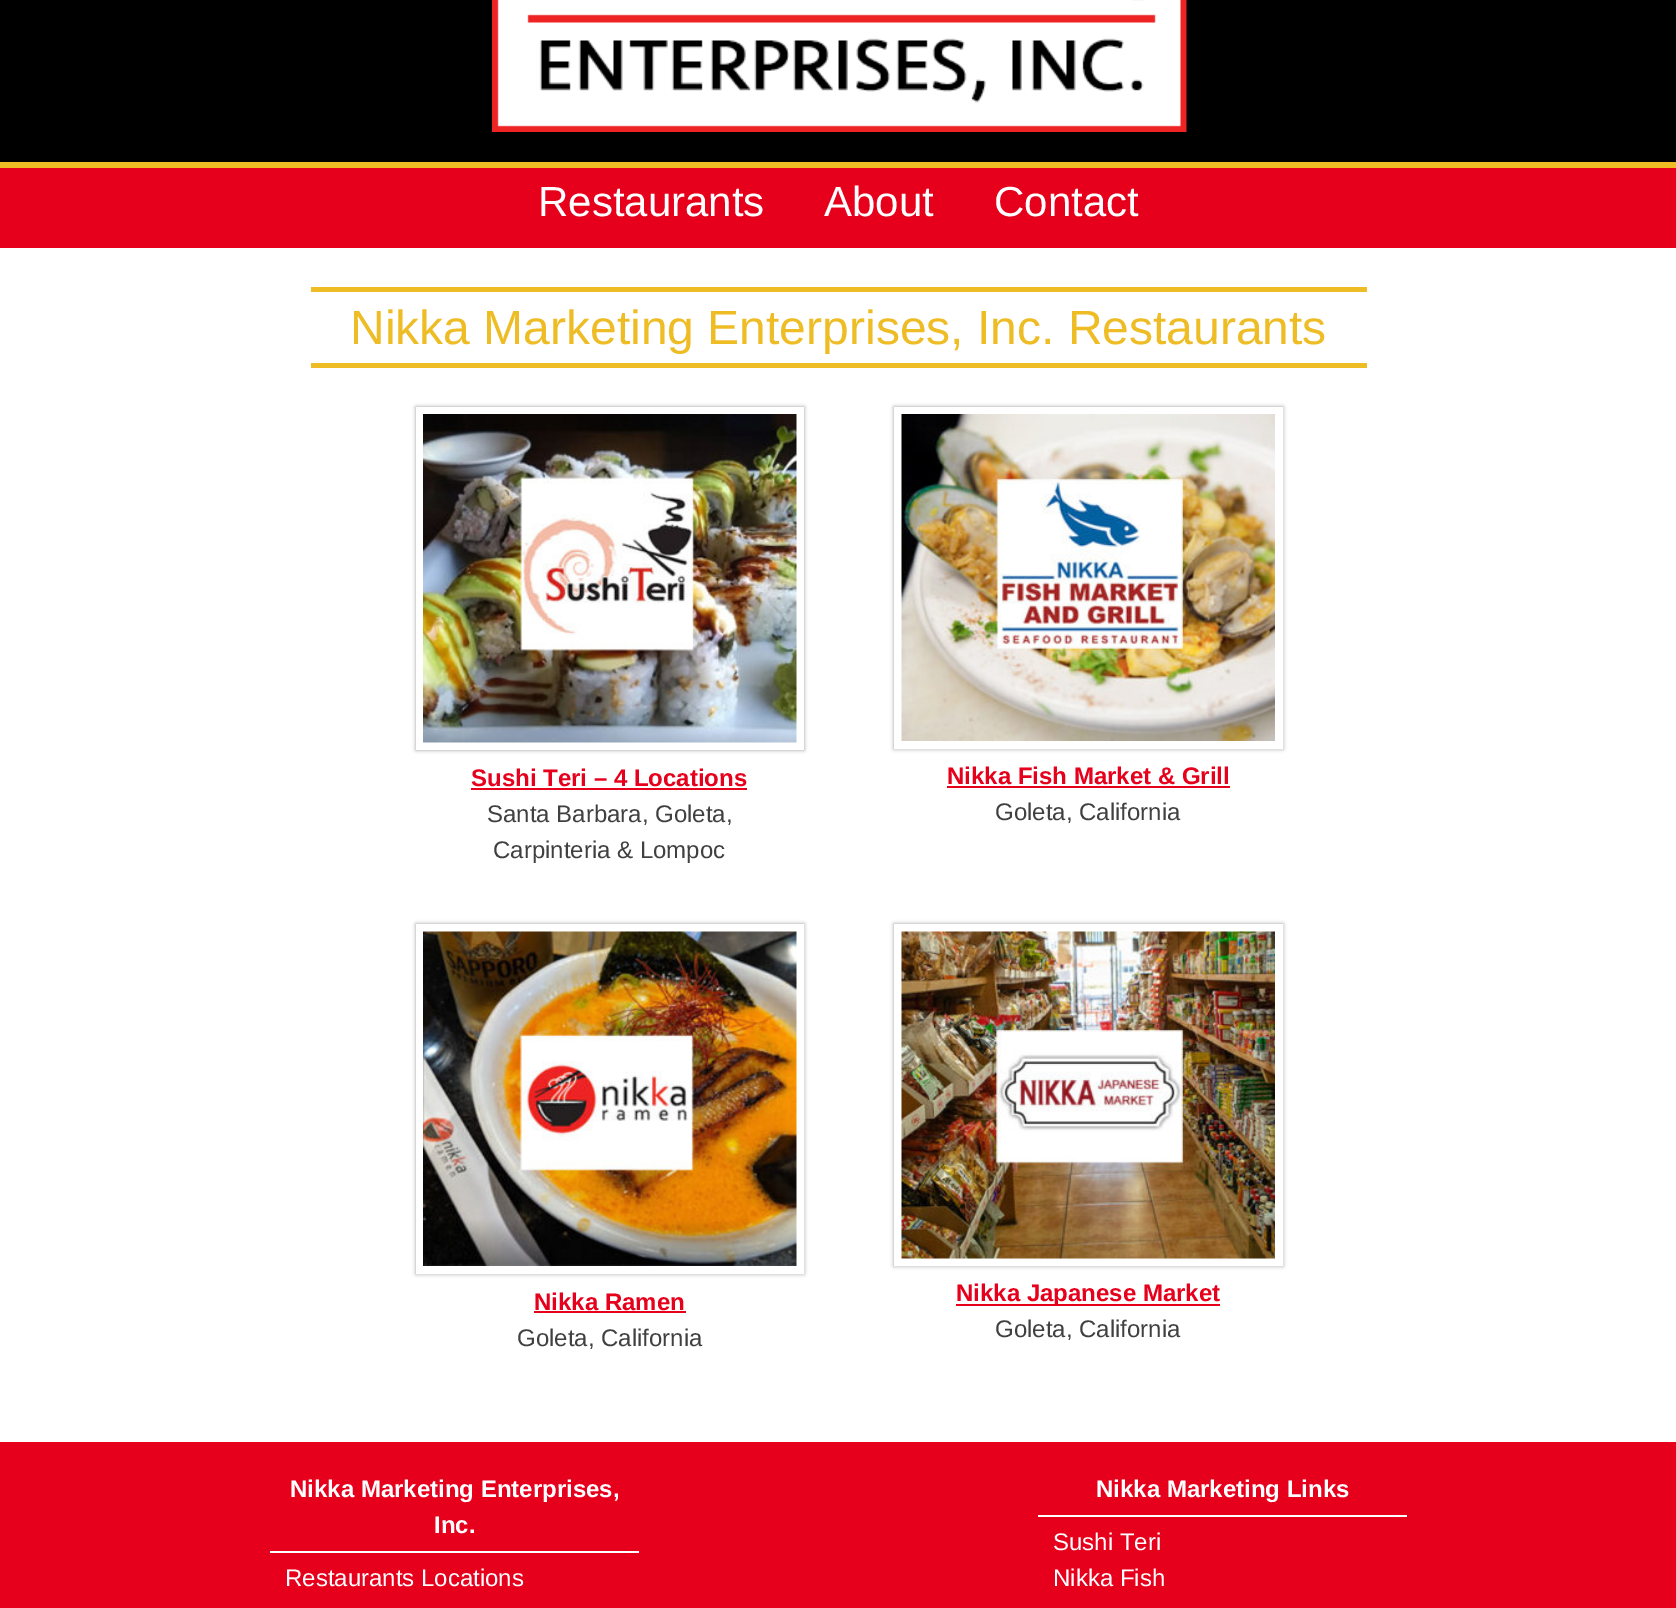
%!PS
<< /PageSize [1676 1608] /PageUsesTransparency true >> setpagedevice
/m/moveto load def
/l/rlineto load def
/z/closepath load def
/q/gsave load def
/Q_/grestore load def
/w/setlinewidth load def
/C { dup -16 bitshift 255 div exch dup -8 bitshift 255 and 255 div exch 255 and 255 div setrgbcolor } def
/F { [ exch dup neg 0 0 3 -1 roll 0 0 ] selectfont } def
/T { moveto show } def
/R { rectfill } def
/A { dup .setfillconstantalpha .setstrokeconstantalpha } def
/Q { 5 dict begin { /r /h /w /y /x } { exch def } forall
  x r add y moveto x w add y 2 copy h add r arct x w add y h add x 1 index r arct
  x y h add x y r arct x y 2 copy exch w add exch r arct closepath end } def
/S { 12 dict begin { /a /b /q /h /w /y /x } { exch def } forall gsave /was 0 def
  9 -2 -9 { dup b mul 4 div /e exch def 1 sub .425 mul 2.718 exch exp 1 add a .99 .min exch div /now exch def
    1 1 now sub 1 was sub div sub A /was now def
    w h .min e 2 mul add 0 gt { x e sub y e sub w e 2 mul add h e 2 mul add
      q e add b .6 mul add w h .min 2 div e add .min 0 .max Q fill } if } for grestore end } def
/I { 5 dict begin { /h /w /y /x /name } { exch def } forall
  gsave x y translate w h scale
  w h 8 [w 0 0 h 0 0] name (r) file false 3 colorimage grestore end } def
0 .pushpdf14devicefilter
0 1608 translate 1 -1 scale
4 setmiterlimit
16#FFFFFF C
0 0 1676 1608 R
16#000000 C
0 0 1676 162 R
(1.rgb) 492 0 695 132 I
16#E6001C C
0 168 1676 80 R
16#EEBC24 C
0 162 1676 6 R
/LiberationSans-Regular 42 F
16#FFFFFF C
(Restaurants) 538 216 T
(About) 824 216 T
(Contact) 994 216 T
16#EEBC24 C
311 287 1056 5 R
311 363 1056 5 R
/LiberationSans-Regular 48 F
(Nikka Marketing Enterprises, Inc. Restaurants) 350 344 T
q
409 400 m 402 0 l 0 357 l -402 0 l z 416 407 m 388 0 l 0 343 l -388 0 l z eoclip newpath
16#999999 C
416 407 388 343 0 2 1 S
Q_
(2.rgb) 423 414 374 329 I
/LiberationSans-Bold 24 F
16#E6001C C
(Sushi Teri – 4 Locations) 471 786 T
471 788 276 2 R
/LiberationSans-Regular 24 F
16#404040 C
(Santa Barbara, Goleta,) 487 822 T
(Carpinteria & Lompoc) 493 858 T
16#999999 C
894 407 389 342 0 2 1 S
16#FFFFFF C
8 w
898 411 381 334 rectstroke
(3.rgb) 901 414 374 327 I
/LiberationSans-Bold 24 F
16#E6001C C
(Nikka Fish Market & Grill) 947 784 T
947 786 283 2 R
/LiberationSans-Regular 24 F
16#404040 C
(Goleta, California) 995 820 T
16#999999 C
416 924 388 350 0 2 1 S
16#FFFFFF C
420 928 380 342 rectstroke
(4.rgb) 423 931 374 335 I
/LiberationSans-Bold 24 F
16#E6001C C
(Nikka Ramen) 534 1310 T
534 1311 152 2 R
/LiberationSans-Regular 24 F
16#404040 C
(Goleta, California) 517 1346 T
16#999999 C
894 924 389 342 0 2 1 S
16#FFFFFF C
898 928 381 334 rectstroke
(5.rgb) 901 931 374 328 I
16#E6001C C
956 1304 264 2 R
/LiberationSans-Bold 24 F
(Nikka Japanese Market) 956 1301 T
/LiberationSans-Regular 24 F
16#404040 C
(Goleta, California) 995 1337 T
16#E6001C C
0 1442 1676 166 R
/LiberationSans-Bold 24 F
16#FFFFFF C
(Nikka Marketing Enterprises,) 290 1497 T
(Inc.) 434 1533 T
270 1551 369 2 R
/LiberationSans-Regular 24 F
(Restaurants Locations) 285 1586 T
/LiberationSans-Bold 24 F
(Nikka Marketing Links) 1096 1497 T
1038 1515 369 2 R
/LiberationSans-Regular 24 F
(Sushi Teri) 1053 1550 T
(Nikka Fish) 1053 1586 T
.poppdf14devicefilter showpage
